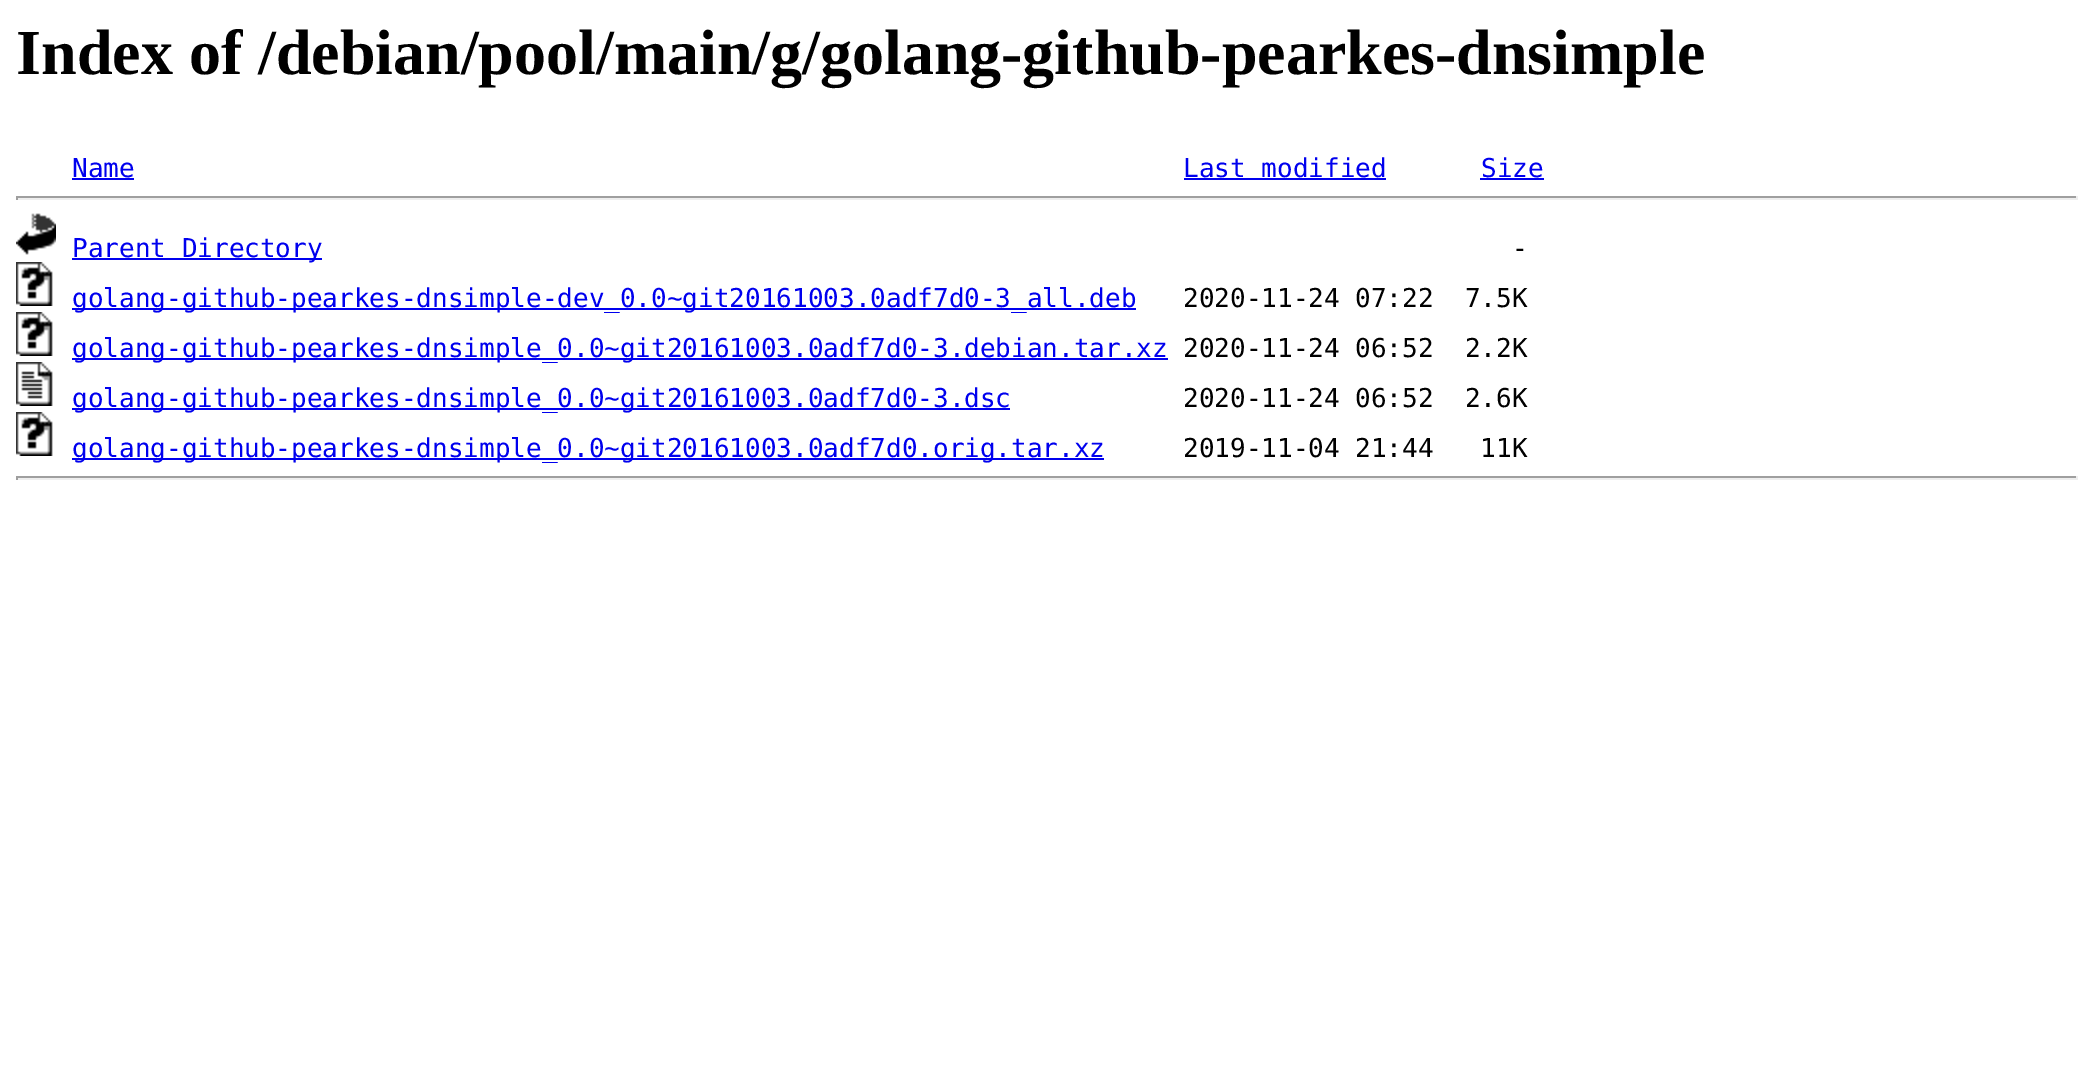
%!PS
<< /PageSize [2094 1070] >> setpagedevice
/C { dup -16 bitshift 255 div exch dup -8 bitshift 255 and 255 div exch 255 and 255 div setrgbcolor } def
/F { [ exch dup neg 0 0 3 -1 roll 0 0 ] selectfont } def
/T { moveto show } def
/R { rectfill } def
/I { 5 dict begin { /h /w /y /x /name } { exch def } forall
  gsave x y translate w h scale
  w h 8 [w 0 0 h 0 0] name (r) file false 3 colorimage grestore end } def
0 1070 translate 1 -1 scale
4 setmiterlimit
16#FFFFFF C
0 0 2094 1070 R
/LiberationSerif-Bold 64 F
16#000000 C
(Index of /debian/pool/main/g/golang-github-pearkes-dnsimple) 16 74 T
/DejaVuSansMono-Regular 26 F
16#0000EE C
(Name) 72 177 T
72 178 62 2 R
(Last modified) 1183 177 T
1184 178 202 2 R
(Size) 1481 177 T
1480 178 64 2 R
16#9F9F9F C
16 196 2062 2 R
16#EEEEEE C
2076 196 2 4 R
16 198 2062 2 R
16#9F9F9F C
16 196 2 4 R
(1.rgb) 16 213 40 42 I
16#0000EE C
72 258 250 2 R
(Parent Directory) 72 257 T
16#000000 C
(-) 1512 257 T
(2.rgb) 16 262 37 44 I
16#0000EE C
72 308 1064 2 R
(golang-github-pearkes-dnsimple-dev_0.0~git20161003.0adf7d0-3_all.deb) 72 307 T
16#000000 C
(2020-11-24 07:22  7.5K) 1183 307 T
(2.rgb) 16 312 37 44 I
16#0000EE C
72 358 1096 2 R
(golang-github-pearkes-dnsimple_0.0~git20161003.0adf7d0-3.debian.tar.xz) 72 357 T
16#000000 C
(2020-11-24 06:52  2.2K) 1183 357 T
(3.rgb) 16 362 37 44 I
16#0000EE C
72 408 938 2 R
(golang-github-pearkes-dnsimple_0.0~git20161003.0adf7d0-3.dsc) 72 407 T
16#000000 C
(2020-11-24 06:52  2.6K) 1183 407 T
(2.rgb) 16 412 37 44 I
16#0000EE C
72 458 1032 2 R
(golang-github-pearkes-dnsimple_0.0~git20161003.0adf7d0.orig.tar.xz) 72 457 T
16#000000 C
(2019-11-04 21:44   11K) 1183 457 T
16#9F9F9F C
16 476 2062 2 R
16#EEEEEE C
2076 476 2 4 R
16 478 2062 2 R
16#9F9F9F C
16 476 2 4 R
showpage
